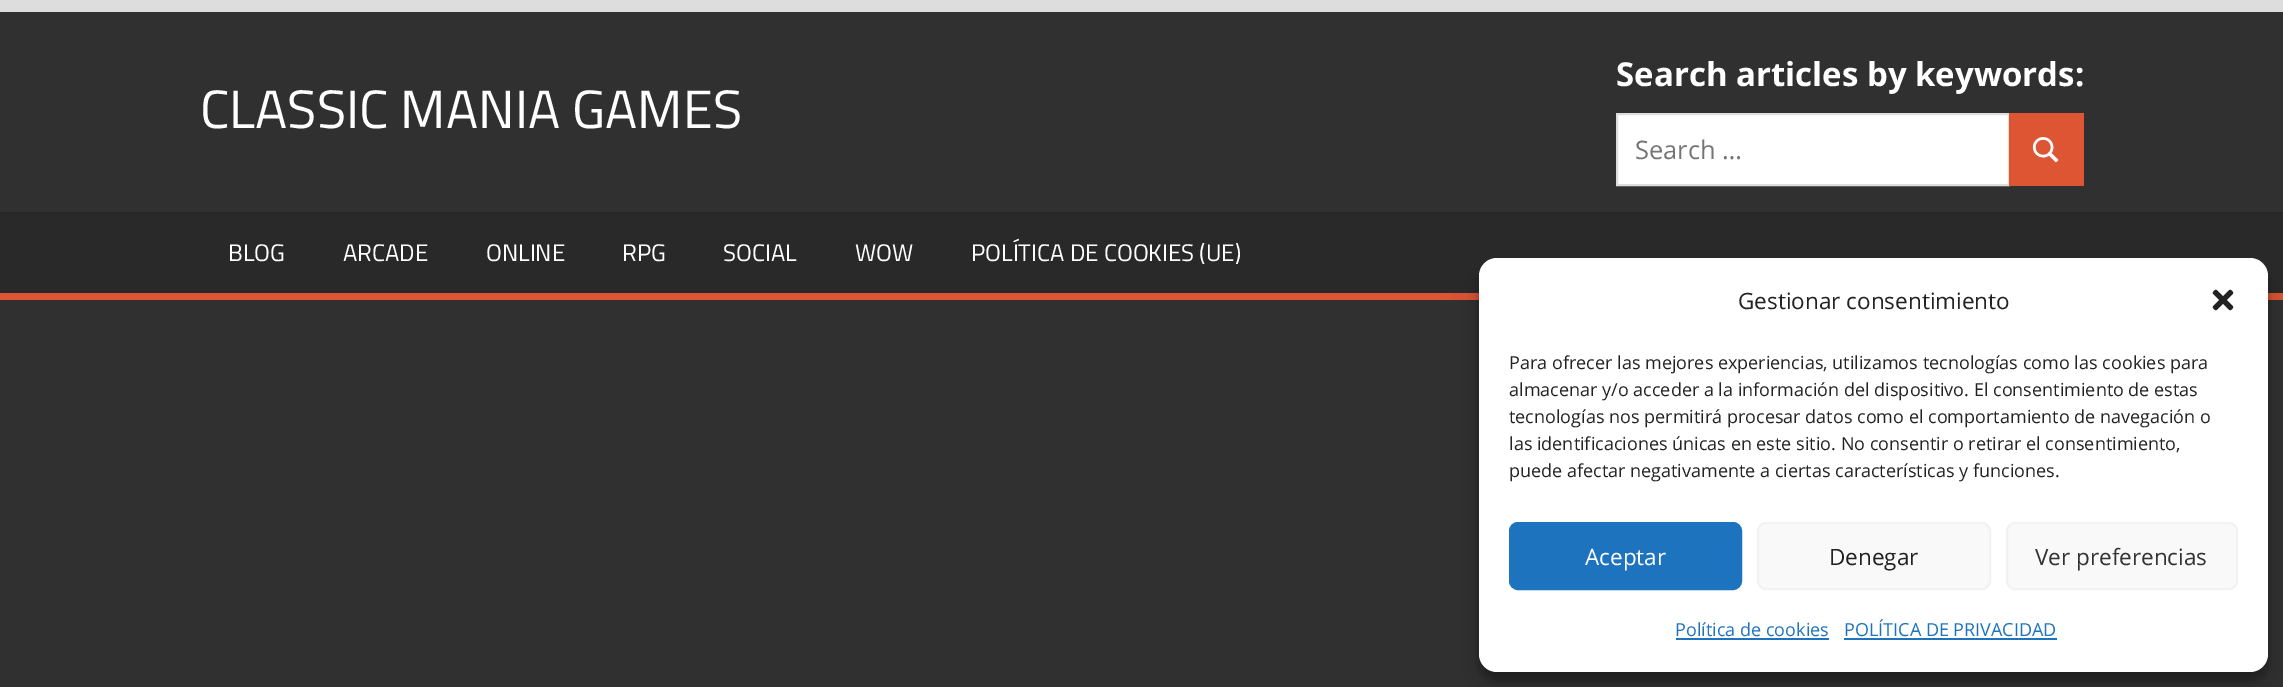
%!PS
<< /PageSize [2283 687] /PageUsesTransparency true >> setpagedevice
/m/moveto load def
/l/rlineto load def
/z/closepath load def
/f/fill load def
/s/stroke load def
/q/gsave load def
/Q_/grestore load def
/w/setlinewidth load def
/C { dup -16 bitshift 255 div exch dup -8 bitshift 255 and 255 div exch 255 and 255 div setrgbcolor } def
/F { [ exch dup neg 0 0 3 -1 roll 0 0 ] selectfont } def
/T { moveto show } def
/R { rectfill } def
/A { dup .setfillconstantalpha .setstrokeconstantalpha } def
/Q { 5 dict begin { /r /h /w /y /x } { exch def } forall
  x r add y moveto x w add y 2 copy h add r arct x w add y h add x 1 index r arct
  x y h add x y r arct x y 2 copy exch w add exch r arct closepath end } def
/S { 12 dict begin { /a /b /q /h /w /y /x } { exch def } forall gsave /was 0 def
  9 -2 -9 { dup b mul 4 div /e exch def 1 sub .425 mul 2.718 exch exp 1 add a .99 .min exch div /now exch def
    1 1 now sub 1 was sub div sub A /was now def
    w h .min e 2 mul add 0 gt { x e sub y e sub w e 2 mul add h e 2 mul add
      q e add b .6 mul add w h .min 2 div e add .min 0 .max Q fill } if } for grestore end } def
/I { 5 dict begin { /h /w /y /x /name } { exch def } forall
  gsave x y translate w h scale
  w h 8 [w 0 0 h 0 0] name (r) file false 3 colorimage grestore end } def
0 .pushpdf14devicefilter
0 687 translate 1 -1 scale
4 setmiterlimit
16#DDDDDD C
0 0 2283 687 R
16#303030 C
0 12 2283 675 R
/TitilliumWeb-Regular 54 F
16#FFFFFF C
(CLASSIC MANIA GAMES) 200 128 T
/OpenSans-Bold 33 F
(Search articles by keywords:) 1616 86 T
1617 114 m 392 0 l 0 71 l -392 0 l z q f Q_
16#DDDDDD C
2 w
s
/OpenSans-Regular 25.5 F
16#757575 C
(Search …) 1635 159 T
16#DD5533 C
2009 113 75 73 R
(1.rgb) 2032 137 27 26 I
16#292929 C
0 214 2283 79 R
16#272727 C
0 212 2283 2 R
16#DD5533 C
0 293 2283 7 R
/TitilliumWeb-Regular 24 F
16#FFFFFF C
(BLOG) 228 261 T
(ARCADE) 343 261 T
(ONLINE) 486 261 T
(RPG) 622 261 T
(SOCIAL) 723 261 T
(WOW) 855 261 T
(POLÍTICA DE COOKIES \(UE\)) 971 261 T
16#000000 C
1479 267 789 414 18 4.5 .23 S
1479 273 789 414 18 15 .19 S
16#FFFFFF C
1479 258 789 414 18 Q f
/OpenSans-Regular 22.5 F
16#222222 C
(Gestionar consentimiento) 1738 309 T
(2.rgb) 2212 289 22 22 I
/OpenSans-Regular 18 F
(Para ofrecer las mejores experiencias, utilizamos tecnologías como las cookies para) 1509 369 T
(almacenar y/o acceder a la información del dispositivo. El consentimiento de estas) 1509 396 T
(tecnologías nos permitirá procesar datos como el comportamiento de navegación o) 1509 423 T
(las identificaciones únicas en este sitio. No consentir o retirar el consentimiento,) 1509 450 T
(puede afectar negativamente a ciertas características y funciones.) 1509 477 T
16#1E73BE C
1510 523 231 66 8 Q q f Q_
s
/OpenSans-Regular 22.5 F
16#FFFFFF C
(Aceptar) 1585 565 T
16#F9F9F9 C
1758 523 232 66 8 Q q f Q_
16#F2F2F2 C
s
16#222222 C
(Denegar) 1829 565 T
16#F9F9F9 C
2007 523 230 66 8 Q q f Q_
16#F2F2F2 C
s
16#333333 C
(Ver preferencias) 2035 565 T
/OpenSans-Regular 18 F
16#1E73BE C
(Política de cookies) 1675 636 T
1676 638 153 2 R
(POLÍTICA DE PRIVACIDAD) 1844 636 T
1844 638 213 2 R
.poppdf14devicefilter showpage
